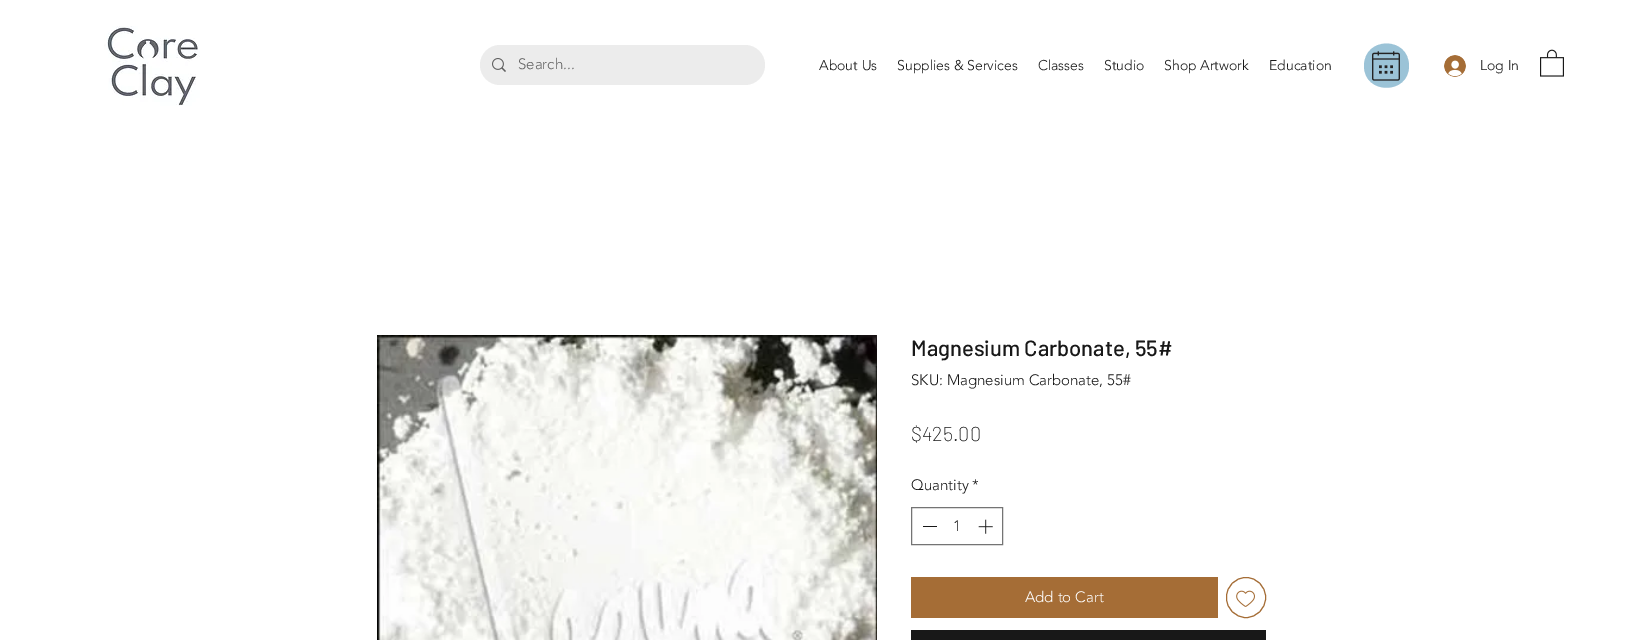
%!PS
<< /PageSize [1642 640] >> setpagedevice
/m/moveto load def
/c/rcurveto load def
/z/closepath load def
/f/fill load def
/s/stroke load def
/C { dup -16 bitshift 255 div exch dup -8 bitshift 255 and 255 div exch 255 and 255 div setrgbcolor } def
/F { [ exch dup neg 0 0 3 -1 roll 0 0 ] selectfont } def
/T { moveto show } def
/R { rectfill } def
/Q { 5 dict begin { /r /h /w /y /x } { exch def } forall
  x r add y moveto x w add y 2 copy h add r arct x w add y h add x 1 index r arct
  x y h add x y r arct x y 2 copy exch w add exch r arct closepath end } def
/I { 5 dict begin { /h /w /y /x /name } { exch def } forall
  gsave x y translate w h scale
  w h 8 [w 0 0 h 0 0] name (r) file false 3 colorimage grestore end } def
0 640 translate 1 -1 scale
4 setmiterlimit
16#FFFFFF C
0 0 1642 640 R
(1.rgb) 104 26 96 80 I
16#9BC3D7 C
1409 66 m 0 29 -45 29 -45 0 c 0 -30 45 -30 45 0 c z f
(2.rgb) 1540 49 24 28 I
16#ECECEC C
480 45 285 40 20 Q f
(3.rgb) 492 58 14 14 I
/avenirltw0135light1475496-Light 15 F
16#636363 C
(Search...) 518 69 T
/avenirltw0135light1475496-Light 14 F
16#181818 C
(About Us) 819 70 T
(Supplies & Services) 897 70 T
(Classes) 1038 70 T
(Studio) 1104 70 T
(Shop Artwork) 1164 70 T
(Education) 1269 70 T
(4.rgb) 1372 51 28 30 I
(5.rgb) 1444 55 22 22 I
(Log In) 1480 70 T
(6.rgb) 377 335 500 305 I
/Barlow-Medium 22 F
(Magnesium Carbonate, 55#) 911 356 T
/avenirltw0135light1475496-Light 15 F
(SKU: Magnesium Carbonate, 55#) 911 385 T
/Barlow-ExtraLight 20 F
($425.00) 911 441 T
/avenirltw0135light1475496-Light 15 F
(Quantity *) 911 490 T
16#747474 C
911.5 507.5 91 37 rectstroke
16#181818 C
923 526 14 1 R
(1) 953 531 T
(7.rgb) 978 519 15 15 I
16#A56D36 C
911 577 307 41 R
16#FFFFFF C
(Add to Cart) 1025 602 T
16#A56D36 C
1226.5 577.5 39 40 19.5 Q s
(8.rgb) 1236 590 19 17 I
16#181818 C
911 630 355 10 R
showpage
